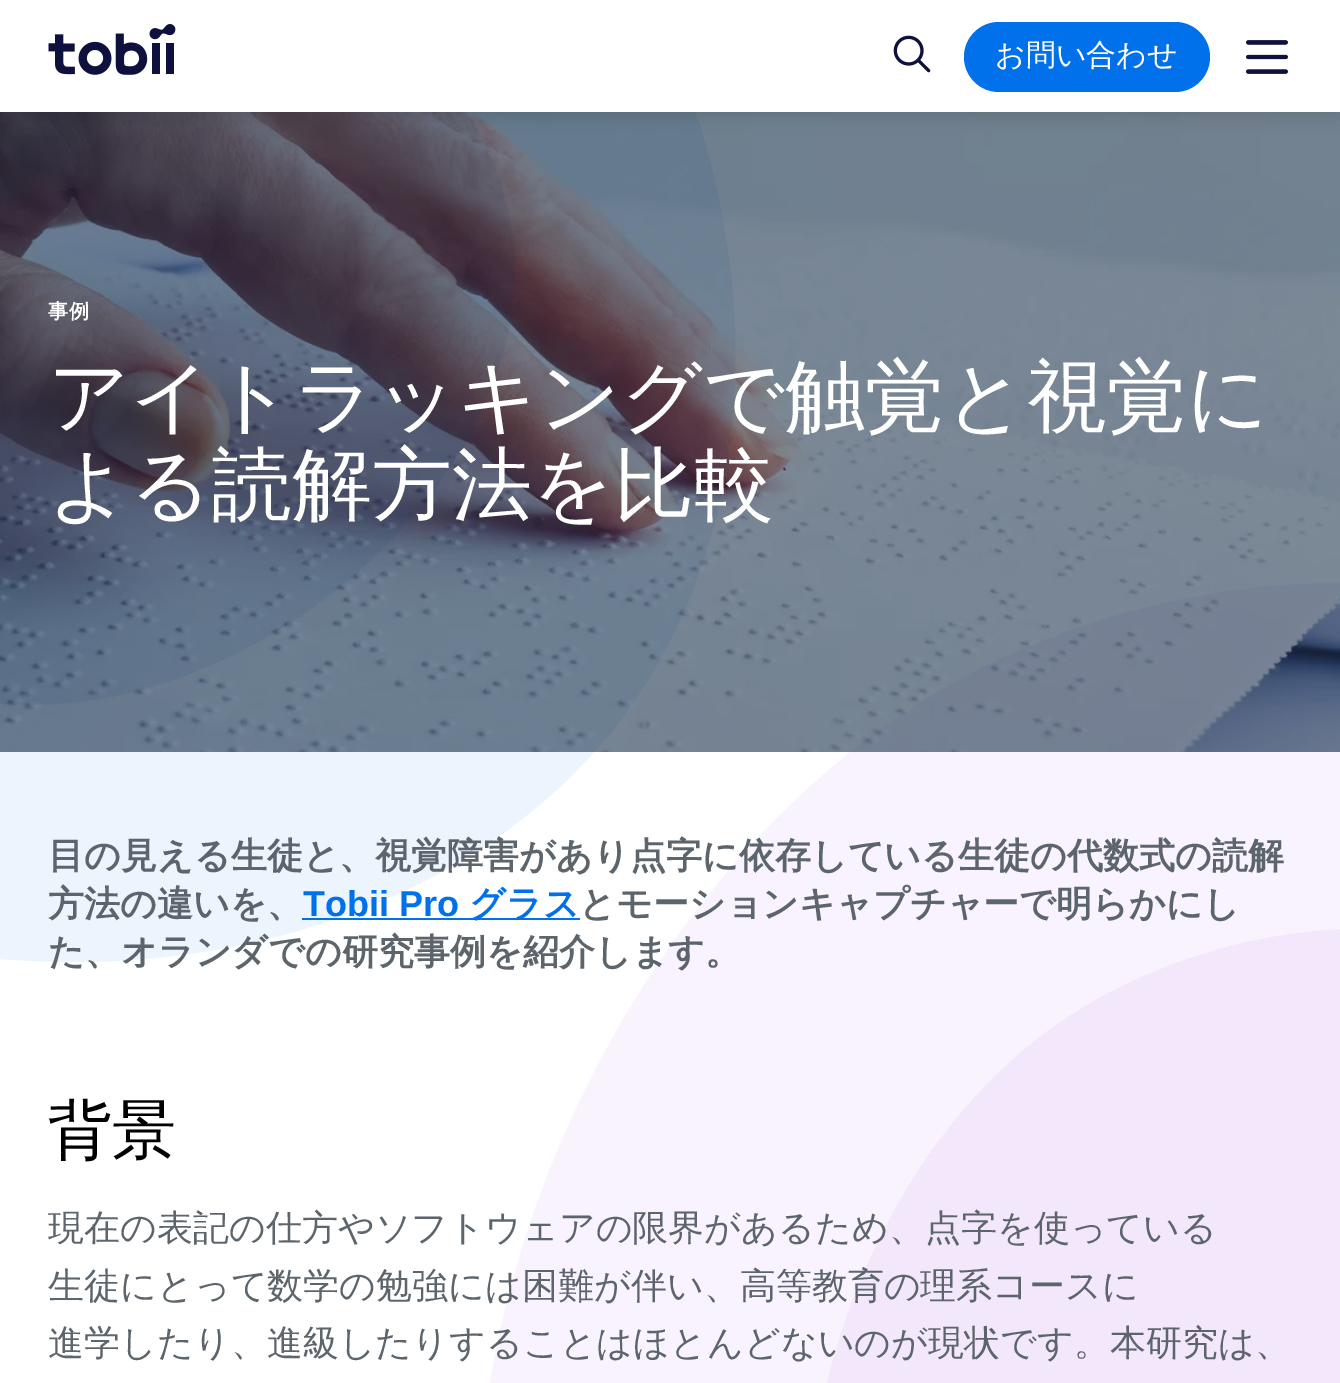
%!PS
<< /PageSize [1340 1383] /PageUsesTransparency true >> setpagedevice
/m/moveto load def
/f/fill load def
/C { dup -16 bitshift 255 div exch dup -8 bitshift 255 and 255 div exch 255 and 255 div setrgbcolor } def
/F { [ exch dup neg 0 0 3 -1 roll 0 0 ] selectfont } def
/T { moveto show } def
/R { rectfill } def
/A { dup .setfillconstantalpha .setstrokeconstantalpha } def
/Q { 5 dict begin { /r /h /w /y /x } { exch def } forall
  x r add y moveto x w add y 2 copy h add r arct x w add y h add x 1 index r arct
  x y h add x y r arct x y 2 copy exch w add exch r arct closepath end } def
/S { 12 dict begin { /a /b /q /h /w /y /x } { exch def } forall gsave /was 0 def
  9 -2 -9 { dup b mul 4 div /e exch def 1 sub .425 mul 2.718 exch exp 1 add a .99 .min exch div /now exch def
    1 1 now sub 1 was sub div sub A /was now def
    w h .min e 2 mul add 0 gt { x e sub y e sub w e 2 mul add h e 2 mul add
      q e add b .6 mul add w h .min 2 div e add .min 0 .max Q fill } if } for grestore end } def
/I { 5 dict begin { /h /w /y /x /name } { exch def } forall
  gsave x y translate w h scale
  w h 8 [w 0 0 h 0 0] name (r) file false 3 colorimage grestore end } def
0 .pushpdf14devicefilter
0 1383 translate 1 -1 scale
4 setmiterlimit
16#FFFFFF C
0 0 1340 1383 R
(4.rgb) 0 112 1340 640 I
(5.rgb) 0 112 1340 1271 I
0.5 A
16#00172F C
0 112 1340 640 R
1 A
16#1A1A1A C
0 8 1340 112 0 16 .05 S
16#000000 C
0 4 1340 112 0 8 .1 S
16#FFFFFF C
0 0 1340 112 R
(1.rgb) 48 24 128 51 I
(2.rgb) 893 35 38 38 I
16#0071EB C
964 22 246 70 35 Q f
/WenQuanYiZenHei-Medium 30 F
16#FFFFFF C
(お問い合わせ) 995 65 T
(3.rgb) 1246 40 42 34 I
/WenQuanYiZenHei-Bold 20 F
48 318 m 1 0 (事例) ashow
/WenQuanYiZenHei-Medium 80 F
(アイトラッキングで触覚と視覚に) 48 424 T
(よる読解方法を比較) 48 512 T
/WenQuanYiZenHei-Bold 36 F
16#5D656C C
(目の見える生徒と、視覚障害があり点字に依存している生徒の代数式の読解) 48 868 T
(方法の違いを、) 48 916 T
/LiberationSans-Bold 36 F
16#0071EB C
(Tobii Pro) 303 916 T
302 918 278 2 R
/WenQuanYiZenHei-Bold 36 F
(グラス) 469 916 T
16#5D656C C
(とモーションキャプチャーで明らかにし) 579 916 T
(た、オランダでの研究事例を紹介します。) 48 964 T
/WenQuanYiZenHei-Medium 64 F
16#000000 C
(背景) 48 1152 T
/WenQuanYiZenHei-Medium 36 F
16#5D656C C
(現在の表記の仕方やソフトウェアの限界があるため、点字を使っている) 48 1240 T
(生徒にとって数学の勉強には困難が伴い、高等教育の理系コースに) 48 1298 T
(進学したり、進級したりすることはほとんどないのが現状です。本研究は、) 48 1355 T
.poppdf14devicefilter showpage
